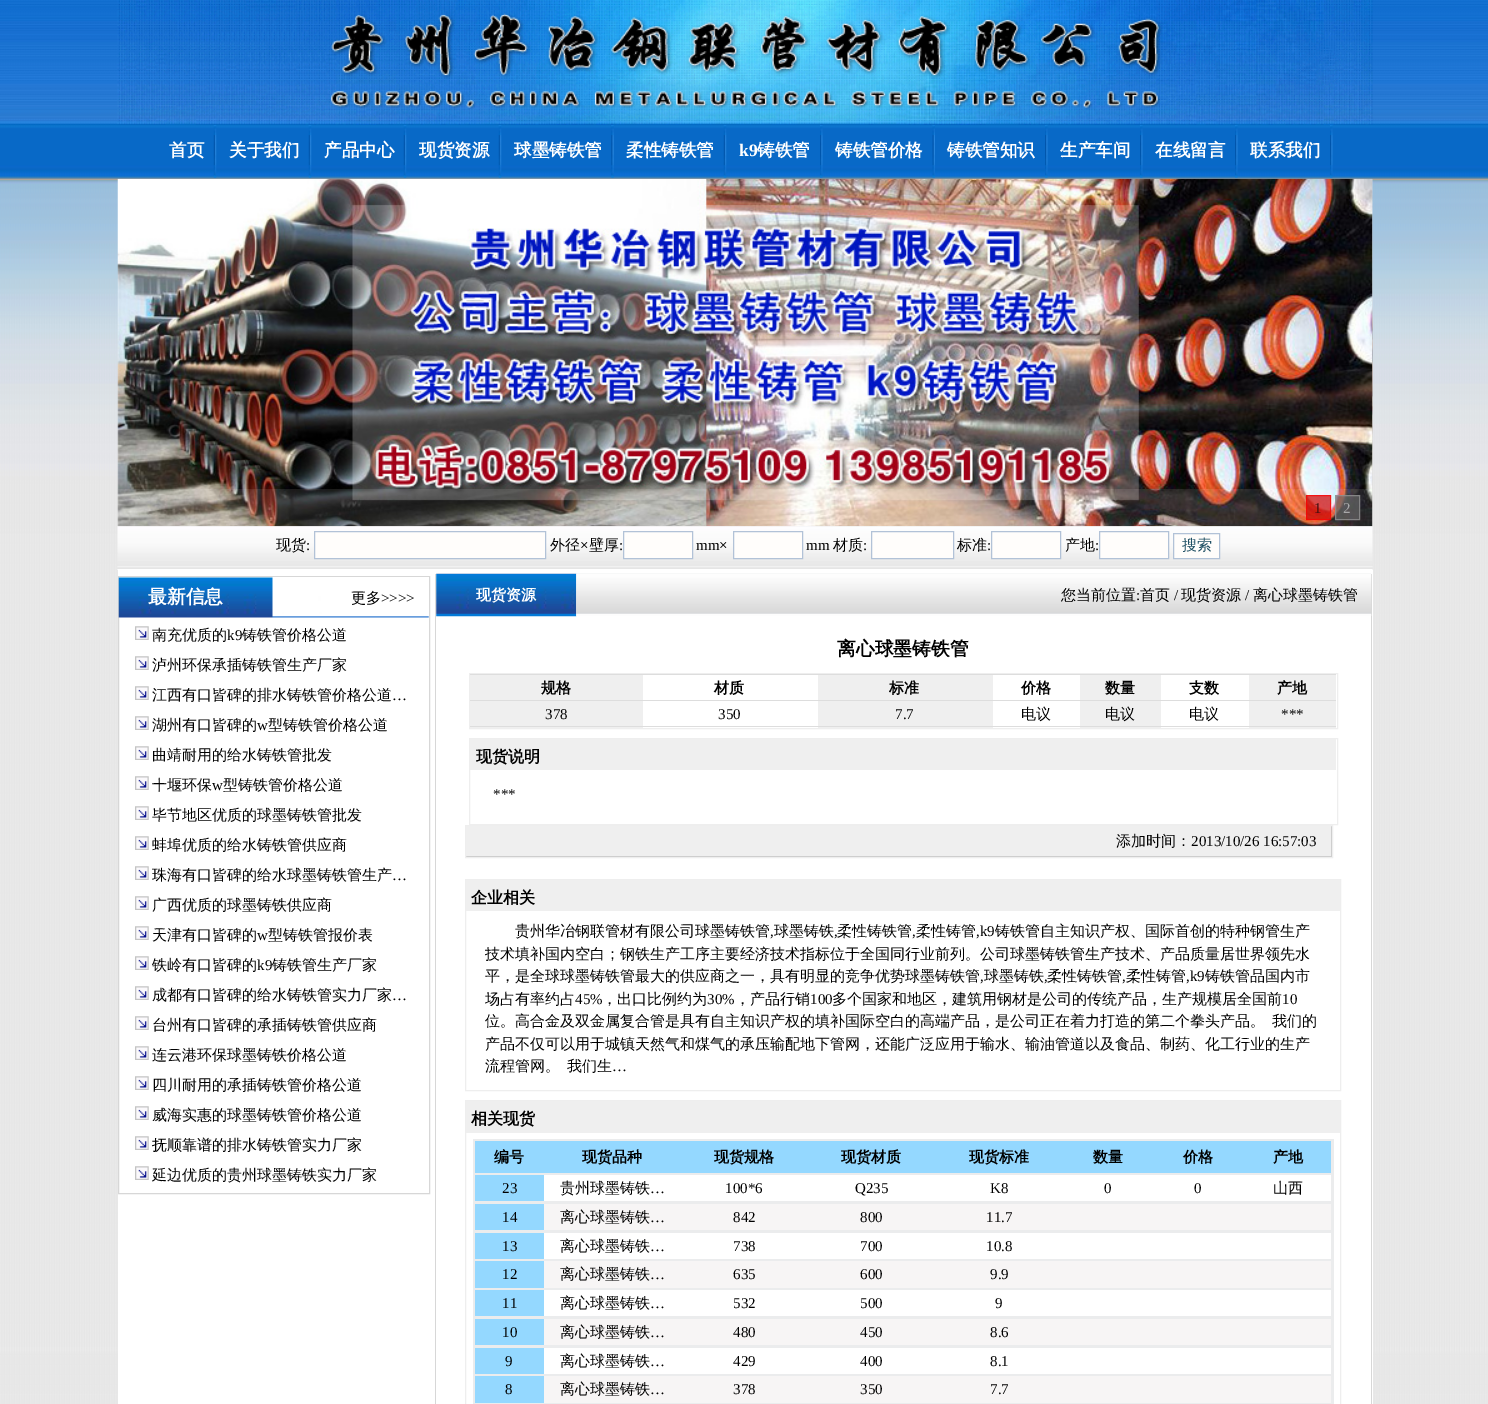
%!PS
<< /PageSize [1488 1404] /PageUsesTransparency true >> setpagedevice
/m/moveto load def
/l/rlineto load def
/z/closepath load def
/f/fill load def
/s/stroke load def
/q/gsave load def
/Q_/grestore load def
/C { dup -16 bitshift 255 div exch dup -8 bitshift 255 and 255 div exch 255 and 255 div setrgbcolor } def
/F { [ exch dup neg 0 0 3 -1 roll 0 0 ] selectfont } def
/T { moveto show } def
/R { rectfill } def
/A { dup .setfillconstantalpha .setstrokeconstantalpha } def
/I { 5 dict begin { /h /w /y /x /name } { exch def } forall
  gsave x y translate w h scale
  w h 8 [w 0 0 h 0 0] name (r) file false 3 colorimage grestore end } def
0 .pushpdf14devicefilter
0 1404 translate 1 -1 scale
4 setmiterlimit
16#FFFFFF C
0 0 1488 1404 R
(1.rgb) 0 0 1488 1404 I
(2.rgb) 117 0 1256 125 I
(3.rgb) 213 125 4 53 I
/WenQuanYiZenHei-Bold 17.5 F
(首页) 169 156 T
(3.rgb) 308 125 4 53 I
(关于我们) 229 156 T
(4.rgb) 403 125 4 53 I
(产品中心) 324 156 T
(4.rgb) 498 125 4 53 I
(现货资源) 419 156 T
(5.rgb) 611 125 3 53 I
(球墨铸铁管) 514 156 T
(4.rgb) 723 125 4 53 I
(柔性铸铁管) 626 156 T
(6.rgb) 820 125 3 53 I
/LiberationSerif-Bold 17.5 F
(k9) 739 156 T
/WenQuanYiZenHei-Bold 17.5 F
(铸铁管) 757 156 T
(7.rgb) 932 125 3 53 I
(铸铁管价格) 835 156 T
(6.rgb) 1045 125 3 53 I
(铸铁管知识) 947 156 T
(6.rgb) 1140 125 3 53 I
(生产车间) 1060 156 T
(6.rgb) 1235 125 3 53 I
(在线留言) 1155 156 T
(6.rgb) 1330 125 3 53 I
(联系我们) 1250 156 T
(10.rgb) 117 526 1256 44 I
(8.rgb) 117 178 1256 349 I
(9.rgb) 1372 179 1 347 I
0.1 A
118 489 1255 37 R
0.7 A
16#CC0000 C
1306 495 25 25 R
16#FF0000 C
1306.5 495.5 24 24 rectstroke
/LiberationSerif-Regular 15 F
1 A
16#400E0D C
(1) 1314 513 T
0.7 A
16#666666 C
1335 495 25 25 R
16#999999 C
1335.5 495.5 24 24 rectstroke
1 A
16#A8A8A9 C
(2) 1343 513 T
/WenQuanYiZenHei-Medium 15 F
16#000000 C
(现货) 276 550 T
/LiberationSerif-Regular 15 F
(:) 306 550 T
16#FFFDFB C
314.5 531.5 m 231 0 l 0 27 l -231 0 l z q f Q_
16#B2C2D7 C
s
/WenQuanYiZenHei-Medium 15 F
16#000000 C
(外径) 550 550 T
/LiberationSerif-Regular 15 F
(×) 580 550 T
/WenQuanYiZenHei-Medium 15 F
(壁厚) 589 550 T
/LiberationSerif-Regular 15 F
(:) 619 550 T
16#FFFDFB C
623.5 531.5 m 69 0 l 0 27 l -69 0 l z q f Q_
16#B2C2D7 C
s
16#000000 C
(mm×) 696 550 T
16#FFFDFB C
733.5 531.5 m 69 0 l 0 27 l -69 0 l z q f Q_
16#B2C2D7 C
s
16#000000 C
(mm) 806 550 T
/WenQuanYiZenHei-Medium 15 F
(材质) 833 550 T
/LiberationSerif-Regular 15 F
(:) 863 550 T
16#FFFDFB C
871.5 531.5 m 82 0 l 0 27 l -82 0 l z q f Q_
16#B2C2D7 C
s
/WenQuanYiZenHei-Medium 15 F
16#000000 C
(标准) 957 550 T
/LiberationSerif-Regular 15 F
(:) 987 550 T
16#FFFDFB C
991.5 531.5 m 69 0 l 0 27 l -69 0 l z q f Q_
16#B2C2D7 C
s
/WenQuanYiZenHei-Medium 15 F
16#000000 C
(产地) 1065 550 T
/LiberationSerif-Regular 15 F
(:) 1095 550 T
16#FFFDFB C
1099.5 531.5 m 69 0 l 0 27 l -69 0 l z q f Q_
16#B2C2D7 C
s
16#FFFDFB C
1173.5 533.5 m 46 0 l 0 25 l -46 0 l z q f Q_
16#B2C2D7 C
s
/WenQuanYiZenHei-Medium 15 F
16#205064 C
(搜索) 1182 550 T
16#FFFFFF C
118 570 1255 834 R
16#D7D7D7 C
118.5 576.5 311 617 rectstroke
(11.rgb) 118 577 311 41 I
/WenQuanYiZenHei-Bold 18.75 F
16#FFFFFF C
(最新信息) 148 603 T
/WenQuanYiZenHei-Medium 15 F
16#000000 C
(更多) 351 603 T
/LiberationSerif-Regular 15 F
(>>>>) 381 603 T
(12.rgb) 135 626 14 14 I
/WenQuanYiZenHei-Medium 15 F
(南充优质的) 152 640 T
/LiberationSerif-Regular 15 F
(k9) 227 640 T
/WenQuanYiZenHei-Medium 15 F
(铸铁管价格公道) 242 640 T
(12.rgb) 135 656 14 14 I
(泸州环保承插铸铁管生产厂家) 152 670 T
(12.rgb) 135 686 14 14 I
(江西有口皆碑的排水铸铁管价格公道) 152 700 T
/LiberationSerif-Regular 15 F
(…) 392 700 T
(12.rgb) 135 716 14 14 I
/WenQuanYiZenHei-Medium 15 F
(湖州有口皆碑的) 152 730 T
/LiberationSerif-Regular 15 F
(w) 257 730 T
/WenQuanYiZenHei-Medium 15 F
(型铸铁管价格公道) 268 730 T
(12.rgb) 135 746 14 14 I
(曲靖耐用的给水铸铁管批发) 152 760 T
(13.rgb) 135 776 14 14 I
(十堰环保) 152 790 T
/LiberationSerif-Regular 15 F
(w) 212 790 T
/WenQuanYiZenHei-Medium 15 F
(型铸铁管价格公道) 223 790 T
(12.rgb) 135 806 14 14 I
(毕节地区优质的球墨铸铁管批发) 152 820 T
(12.rgb) 135 836 14 14 I
(蚌埠优质的给水铸铁管供应商) 152 850 T
(12.rgb) 135 866 14 14 I
(珠海有口皆碑的给水球墨铸铁管生产) 152 880 T
/LiberationSerif-Regular 15 F
(…) 392 880 T
(12.rgb) 135 896 14 14 I
/WenQuanYiZenHei-Medium 15 F
(广西优质的球墨铸铁供应商) 152 910 T
(12.rgb) 135 926 14 14 I
(天津有口皆碑的) 152 940 T
/LiberationSerif-Regular 15 F
(w) 257 940 T
/WenQuanYiZenHei-Medium 15 F
(型铸铁管报价表) 268 940 T
(12.rgb) 135 956 14 14 I
(铁岭有口皆碑的) 152 970 T
/LiberationSerif-Regular 15 F
(k9) 257 970 T
/WenQuanYiZenHei-Medium 15 F
(铸铁管生产厂家) 272 970 T
(12.rgb) 135 986 14 14 I
(成都有口皆碑的给水铸铁管实力厂家) 152 1000 T
/LiberationSerif-Regular 15 F
(…) 392 1000 T
(12.rgb) 135 1016 14 14 I
/WenQuanYiZenHei-Medium 15 F
(台州有口皆碑的承插铸铁管供应商) 152 1030 T
(12.rgb) 135 1046 14 14 I
(连云港环保球墨铸铁价格公道) 152 1060 T
(12.rgb) 135 1076 14 14 I
(四川耐用的承插铸铁管价格公道) 152 1090 T
(12.rgb) 135 1106 14 14 I
(威海实惠的球墨铸铁管价格公道) 152 1120 T
(12.rgb) 135 1136 14 14 I
(抚顺靠谱的排水铸铁管实力厂家) 152 1150 T
(14.rgb) 135 1166 14 14 I
(延边优质的贵州球墨铸铁实力厂家) 152 1180 T
16#D7D7D7 C
1371 574 1 830 R
435 574 1 830 R
(15.rgb) 436 573 141 44 I
/WenQuanYiZenHei-Bold 15 F
16#FFFFFF C
(现货资源) 476 600 T
(16.rgb) 576 573 796 43 I
/WenQuanYiZenHei-Medium 15 F
16#000000 C
(您当前位置) 1061 600 T
/LiberationSerif-Regular 15 F
(:) 1136 600 T
/WenQuanYiZenHei-Medium 15 F
(首页) 1140 600 T
/LiberationSerif-Regular 15 F
(/) 1174 600 T
/WenQuanYiZenHei-Medium 15 F
(现货资源) 1181 600 T
/LiberationSerif-Regular 15 F
(/) 1245 600 T
/WenQuanYiZenHei-Medium 15 F
(离心球墨铸铁管) 1253 600 T
/WenQuanYiZenHei-Bold 18.75 F
(离心球墨铸铁管) 837 655 T
16#EEEEEE C
469.5 673.5 868 55 rectstroke
16#EFEFEF C
470 675 173 25 R
16#DDDDDD C
470 674 866 1 R
470 700 866 1 R
/WenQuanYiZenHei-Bold 15 F
16#000000 C
(规格) 541 693 T
(材质) 714 693 T
16#EFEFEF C
818 675 175 25 R
16#000000 C
(标准) 889 693 T
(价格) 1021 693 T
16#EFEFEF C
1080 675 81 25 R
16#000000 C
(数量) 1105 693 T
(支数) 1189 693 T
16#EFEFEF C
1249 675 87 25 R
16#000000 C
(产地) 1277 693 T
16#EFEFEF C
470 701 173 27 R
16#DDDDDD C
470 726 348 1 R
/LiberationSerif-Regular 15 F
16#000000 C
(378) 545 719 T
(350) 718 719 T
16#EFEFEF C
818 701 175 27 R
16#DDDDDD C
818 726 262 1 R
16#000000 C
(7.7) 895 719 T
/WenQuanYiZenHei-Medium 15 F
(电议) 1021 719 T
16#EFEFEF C
1080 701 81 27 R
16#DDDDDD C
1080 726 169 1 R
16#000000 C
(电议) 1105 719 T
(电议) 1189 719 T
16#EFEFEF C
1249 701 87 27 R
16#DDDDDD C
1249 726 87 1 R
/LiberationSerif-Regular 15 F
16#000000 C
(***) 1281 719 T
16#EEEEEE C
469.5 738.5 868 86 rectstroke
16#EFEFEF C
470 739 866 31 R
/WenQuanYiZenHei-Bold 16 F
16#000000 C
(现货说明) 476 762 T
/LiberationSerif-Regular 15 F
(***) 493 799 T
16#CECECE C
465.5 825.5 m 867 0 l 0 32 l -867 0 l z q f Q_
16#EEEEEE C
s
16#EFEFEF C
466 826 865 30 R
/WenQuanYiZenHei-Medium 15 F
16#000000 C
(添加时间：) 1116 846 T
/LiberationSerif-Regular 15 F
(2013/10/26 16:57:03) 1191 846 T
16#EEEEEE C
465.5 879.5 875 211 rectstroke
16#EFEFEF C
466 880 874 31 R
/WenQuanYiZenHei-Bold 16 F
16#000000 C
(企业相关) 471 903 T
/WenQuanYiZenHei-Medium 15 F
(贵州华冶钢联管材有限公司球墨铸铁管) 515 936 T
/LiberationSerif-Regular 15 F
(,) 770 936 T
/WenQuanYiZenHei-Medium 15 F
(球墨铸铁) 774 936 T
/LiberationSerif-Regular 15 F
(,) 834 936 T
/WenQuanYiZenHei-Medium 15 F
(柔性铸铁管) 837 936 T
/LiberationSerif-Regular 15 F
(,) 912 936 T
/WenQuanYiZenHei-Medium 15 F
(柔性铸管) 916 936 T
/LiberationSerif-Regular 15 F
(,k9) 976 936 T
/WenQuanYiZenHei-Medium 15 F
(铸铁管自主知识产权、国际首创的特种钢管生产) 995 936 T
(技术填补国内空白；钢铁生产工序主要经济技术指标位于全国同行业前列。公司球墨铸铁管生产技术、产品质量居世界领先水) 485 959 T
(平，是全球球墨铸铁管最大的供应商之一，具有明显的竞争优势球墨铸铁管) 485 981 T
/LiberationSerif-Regular 15 F
(,) 980 981 T
/WenQuanYiZenHei-Medium 15 F
(球墨铸铁) 984 981 T
/LiberationSerif-Regular 15 F
(,) 1044 981 T
/WenQuanYiZenHei-Medium 15 F
(柔性铸铁管) 1047 981 T
/LiberationSerif-Regular 15 F
(,) 1122 981 T
/WenQuanYiZenHei-Medium 15 F
(柔性铸管) 1126 981 T
/LiberationSerif-Regular 15 F
(,k9) 1186 981 T
/WenQuanYiZenHei-Medium 15 F
(铸铁管品国内市) 1205 981 T
(场占有率约占) 485 1004 T
/LiberationSerif-Regular 15 F
(45%) 575 1004 T
/WenQuanYiZenHei-Medium 15 F
(，出口比例约为) 602 1004 T
/LiberationSerif-Regular 15 F
(30%) 707 1004 T
/WenQuanYiZenHei-Medium 15 F
(，产品行销) 735 1004 T
/LiberationSerif-Regular 15 F
(100) 810 1004 T
/WenQuanYiZenHei-Medium 15 F
(多个国家和地区，建筑用钢材是公司的传统产品，生产规模居全国前) 832 1004 T
/LiberationSerif-Regular 15 F
(10) 1282 1004 T
/WenQuanYiZenHei-Medium 15 F
(位。高合金及双金属复合管是具有自主知识产权的填补国际空白的高端产品，是公司正在着力打造的第二个拳头产品。) 485 1026 T
(我们的) 1272 1026 T
(产品不仅可以用于城镇天然气和煤气的承压输配地下管网，还能广泛应用于输水、输油管道以及食品、制药、化工行业的生产) 485 1049 T
(流程管网。) 485 1071 T
(我们生) 567 1071 T
/LiberationSerif-Regular 15 F
(…) 612 1071 T
16#EEEEEE C
465.5 1100.5 875 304 rectstroke
16#EFEFEF C
466 1101 874 32 R
/WenQuanYiZenHei-Bold 16 F
16#000000 C
(相关现货) 471 1124 T
16#EBECED C
473 1139 861 265 R
16#94D8FF C
475 1141 856 32 R
/WenQuanYiZenHei-Bold 15 F
16#000000 C
(编号) 494 1162 T
(现货品种) 582 1162 T
(现货规格) 714 1162 T
(现货材质) 841 1162 T
(现货标准) 969 1162 T
(数量) 1093 1162 T
(价格) 1183 1162 T
(产地) 1273 1162 T
16#FFFFFF C
544 1175 787 26 R
16#94D8FF C
475 1175 69 26 R
/LiberationSerif-Regular 15 F
16#000000 C
(23) 502 1193 T
/WenQuanYiZenHei-Medium 15 F
(贵州球墨铸铁) 560 1193 T
/LiberationSerif-Regular 15 F
(…) 650 1193 T
(100*6) 725 1193 T
(Q235) 855 1193 T
(K8) 990 1193 T
(0) 1104 1193 T
(0) 1194 1193 T
/WenQuanYiZenHei-Medium 15 F
(山西) 1273 1193 T
16#F7F5F5 C
544 1204 787 26 R
16#94D8FF C
475 1204 69 26 R
/LiberationSerif-Regular 15 F
16#000000 C
(14) 502 1222 T
/WenQuanYiZenHei-Medium 15 F
(离心球墨铸铁) 560 1222 T
/LiberationSerif-Regular 15 F
(…) 650 1222 T
(842) 733 1222 T
(800) 860 1222 T
(11.7) 986 1222 T
16#FFFFFF C
544 1233 787 26 R
16#94D8FF C
475 1233 69 26 R
16#000000 C
(13) 502 1251 T
/WenQuanYiZenHei-Medium 15 F
(离心球墨铸铁) 560 1251 T
/LiberationSerif-Regular 15 F
(…) 650 1251 T
(738) 733 1251 T
(700) 860 1251 T
(10.8) 986 1251 T
16#F7F5F5 C
544 1261 787 27 R
16#94D8FF C
475 1261 69 27 R
16#000000 C
(12) 502 1279 T
/WenQuanYiZenHei-Medium 15 F
(离心球墨铸铁) 560 1279 T
/LiberationSerif-Regular 15 F
(…) 650 1279 T
(635) 733 1279 T
(600) 860 1279 T
(9.9) 990 1279 T
16#FFFFFF C
544 1290 787 26 R
16#94D8FF C
475 1290 69 26 R
16#000000 C
(11) 502 1308 T
/WenQuanYiZenHei-Medium 15 F
(离心球墨铸铁) 560 1308 T
/LiberationSerif-Regular 15 F
(…) 650 1308 T
(532) 733 1308 T
(500) 860 1308 T
(9) 995 1308 T
16#F7F5F5 C
544 1319 787 26 R
16#94D8FF C
475 1319 69 26 R
16#000000 C
(10) 502 1337 T
/WenQuanYiZenHei-Medium 15 F
(离心球墨铸铁) 560 1337 T
/LiberationSerif-Regular 15 F
(…) 650 1337 T
(480) 733 1337 T
(450) 860 1337 T
(8.6) 990 1337 T
16#FFFFFF C
544 1348 787 26 R
16#94D8FF C
475 1348 69 26 R
16#000000 C
(9) 505 1366 T
/WenQuanYiZenHei-Medium 15 F
(离心球墨铸铁) 560 1366 T
/LiberationSerif-Regular 15 F
(…) 650 1366 T
(429) 733 1366 T
(400) 860 1366 T
(8.1) 990 1366 T
16#F7F5F5 C
544 1376 787 27 R
16#94D8FF C
475 1376 69 27 R
16#000000 C
(8) 505 1394 T
/WenQuanYiZenHei-Medium 15 F
(离心球墨铸铁) 560 1394 T
/LiberationSerif-Regular 15 F
(…) 650 1394 T
(378) 733 1394 T
(350) 860 1394 T
(7.7) 990 1394 T
.poppdf14devicefilter showpage
